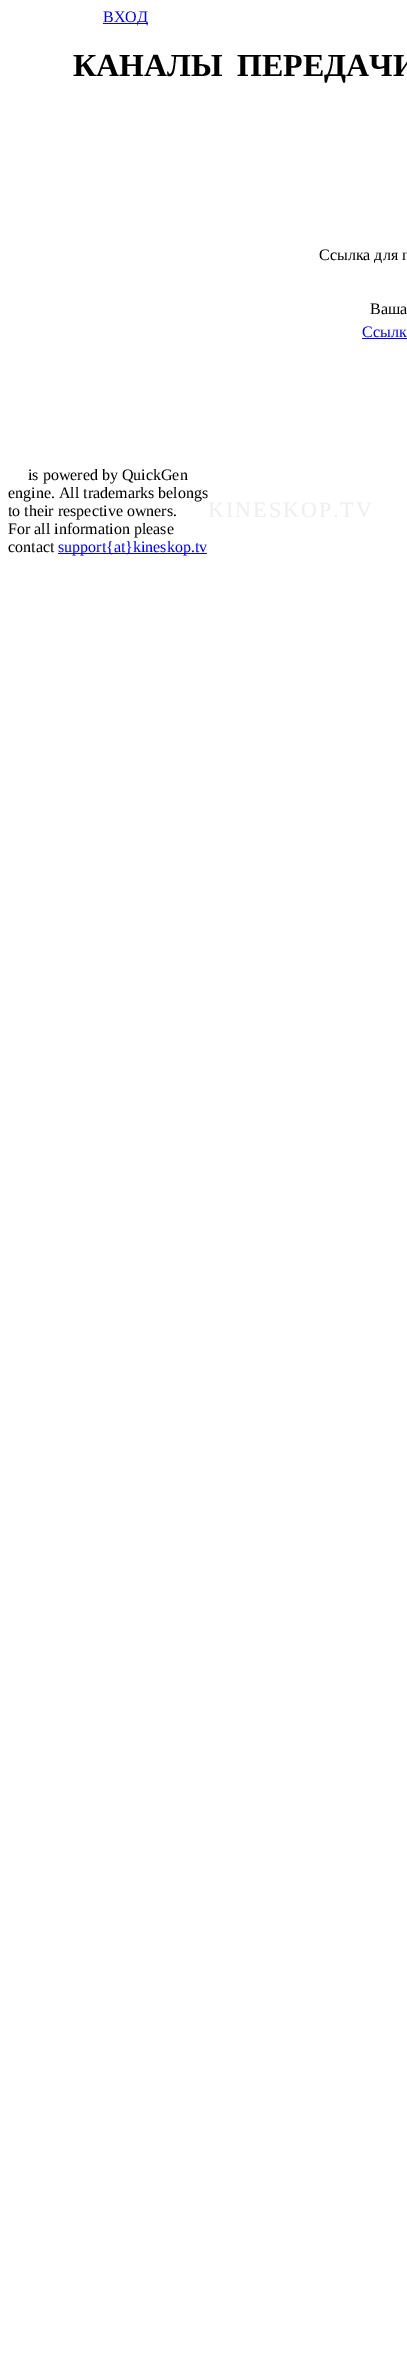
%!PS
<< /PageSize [407 2369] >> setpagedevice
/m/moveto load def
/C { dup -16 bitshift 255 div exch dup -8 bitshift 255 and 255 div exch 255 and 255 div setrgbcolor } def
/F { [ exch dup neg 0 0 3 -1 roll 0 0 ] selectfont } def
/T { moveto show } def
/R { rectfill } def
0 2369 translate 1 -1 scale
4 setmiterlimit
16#FFFFFF C
0 0 407 2369 R
16#0000EE C
103 23 45 1 R
/LiberationSerif-Regular 16 F
(ВХОД) 103 22 T
/LiberationSerif-Bold 32 F
16#000000 C
(КАНАЛЫ) 73 76 T
(ПЕРЕДАЧИ) 237 76 T
/LiberationSerif-Regular 16 F
(Ссылка для п) 319 260 T
(Ваша) 370 314 T
16#0000EE C
(Ссылк) 362 337 T
362 338 45 1 R
16#000000 C
(is powered by QuickGen) 28 480 T
(engine. All trademarks belongs) 8 498 T
(to their respective owners.) 8 516 T
(For all information please) 8 534 T
(contact) 8 552 T
16#0000EE C
58 553 149 1 R
(support{at}kineskop.tv) 58 552 T
/LiberationSerif-Regular 22 F
16#EEEEEE C
208 517 m 2 0 (KINESKOP.TV) ashow
showpage
